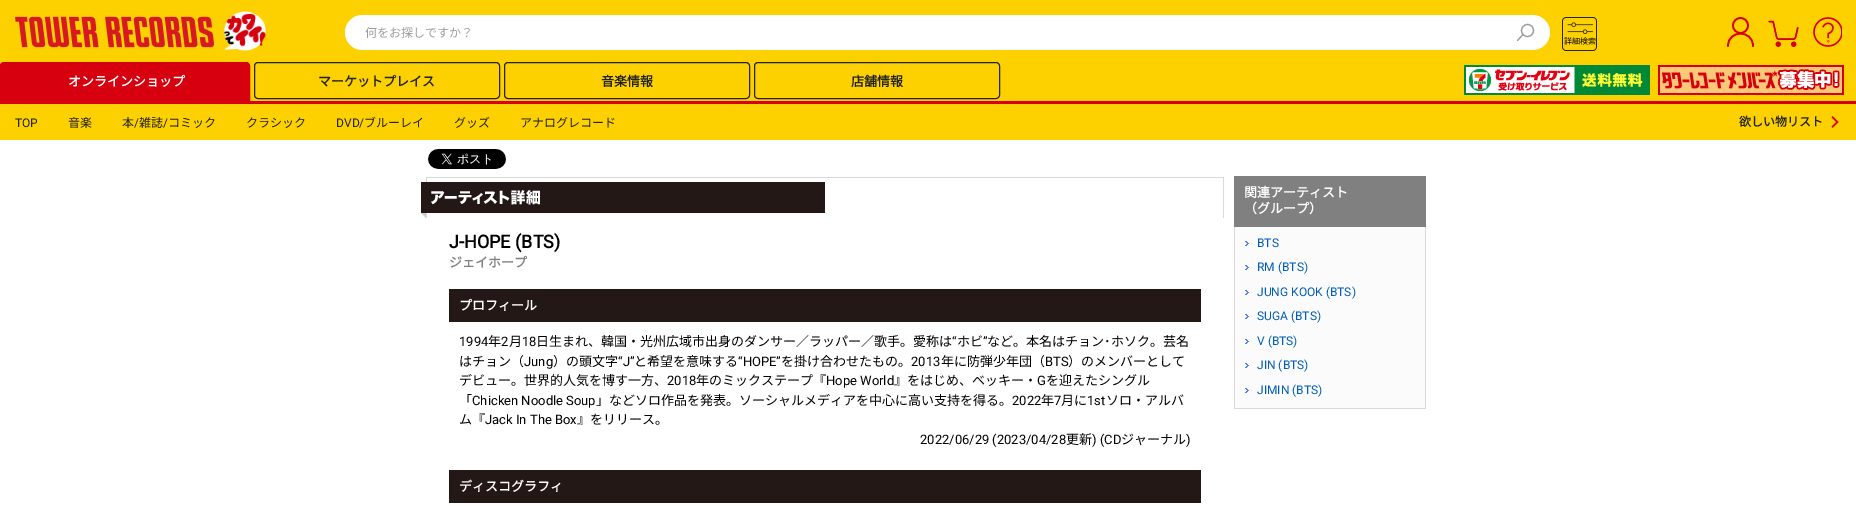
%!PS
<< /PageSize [1856 506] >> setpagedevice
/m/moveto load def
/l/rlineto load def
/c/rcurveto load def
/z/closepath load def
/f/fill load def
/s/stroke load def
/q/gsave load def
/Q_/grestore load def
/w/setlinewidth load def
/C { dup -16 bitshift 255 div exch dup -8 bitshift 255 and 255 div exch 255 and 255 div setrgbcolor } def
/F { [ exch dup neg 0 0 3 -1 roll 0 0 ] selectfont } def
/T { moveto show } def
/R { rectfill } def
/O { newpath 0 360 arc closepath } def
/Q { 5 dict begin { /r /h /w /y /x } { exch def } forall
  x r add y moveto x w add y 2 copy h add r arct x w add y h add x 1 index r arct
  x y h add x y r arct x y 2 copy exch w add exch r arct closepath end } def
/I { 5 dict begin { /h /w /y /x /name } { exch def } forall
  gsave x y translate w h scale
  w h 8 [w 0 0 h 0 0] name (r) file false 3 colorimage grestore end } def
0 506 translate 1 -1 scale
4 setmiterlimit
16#FFFFFF C
0 0 1856 506 R
16#FDD000 C
0 0 1856 140 R
(1.rgb) 15 16 199 32 I
(2.rgb) 224 11 42 40 I
16#FFFFFF C
345 15 1205 35 17.5 Q f
/NotoSansJP-Thin 12 F
16#9E9E9E C
(何をお探しですか？) 365 37 T
1.2 w
1527.5 30.5 6 O s
1 setlinecap
1 setlinejoin
1523 34.5 m -5.5 6 l s
(3.rgb) 1562 17 35 34 I
/NotoSansJP-Thin 8 F
16#000000 C
(詳細検索) 1564 44 T
16#D60010 C
1.7 w
0 setlinecap
0 setlinejoin
1740.5 25.5 7.5 O s
1 setlinecap
1 setlinejoin
1753 46 m 0 -16.5 -25 -16.5 -25 0 c s
(4.rgb) 1768 20 31 27 I
(5.rgb) 1813 17 29 30 I
16#D6000F C
0 101 1856 3 R
4 62.5 m 242 0 l 2 0 3.5 1.5 3.5 3.5 c 0 36.5 l -249 0 l 0 -36.5 l 0 -2 1.5 -3.5 3.5 -3.5 c z q f Q_
1 w
0 setlinecap
0 setlinejoin
s
/NotoSansJP-Bold 13 F
16#FFFFFF C
(オンラインショップ) 68 86 T
16#232323 C
254.5 62.5 245 36 3.5 Q s
(マーケットプレイス) 318 86 T
504.5 62.5 245 36 3.5 Q s
(音楽情報) 601 86 T
754.5 62.5 245 36 3.5 Q s
(店舗情報) 851 86 T
(6.rgb) 1464 65 186 30 I
(7.rgb) 1658 65 186 30 I
/Roboto-Regular 12 F
(TOP) 15 127 T
/NotoSansJP-Thin 12 F
(音楽) 68 127 T
(本) 122 127 T
/Roboto-Regular 12 F
(/) 134 127 T
/NotoSansJP-Thin 12 F
(雑誌) 139 127 T
/Roboto-Regular 12 F
(/) 163 127 T
/NotoSansJP-Thin 12 F
(コミック) 168 127 T
(クラシック) 246 127 T
/Roboto-Regular 12 F
(DVD/) 336 127 T
/NotoSansJP-Thin 12 F
(ブルーレイ) 364 127 T
(グッズ) 454 127 T
(アナログレコード) 520 127 T
/NotoSansJP-Bold 12 F
(欲しい物リスト) 1739 126 T
(8.rgb) 1831 116 8 12 I
(9.rgb) 428 149 78 20 I
(10.rgb) 421 177 806 41 I
/Roboto-Bold 18 F
16#000000 C
(J-HOPE \(BTS\)) 449 248 T
/NotoSansJP-Bold 13 F
16#808080 C
(ジェイホープ) 449 267 T
16#231815 C
449 289 752 33 R
16#FFFFFF C
(プロフィール) 459 310 T
/Roboto-Regular 13 F
16#000000 C
(1994) 459 346 T
/NotoSansJP-Thin 13 F
(年) 488 346 T
/Roboto-Regular 13 F
(2) 501 346 T
/NotoSansJP-Thin 13 F
(月) 509 346 T
/Roboto-Regular 13 F
(18) 522 346 T
/NotoSansJP-Thin 13 F
(日生まれ、韓国・光州広域市出身のダンサー／ラッパー／歌手。愛称は) 536 346 T
/Roboto-Regular 13 F
(“) 952 346 T
/NotoSansJP-Thin 13 F
(ホビ) 957 346 T
/Roboto-Regular 13 F
(”) 983 346 T
/NotoSansJP-Thin 13 F
(など。本名はチョン･ホソク。芸名) 987 346 T
(はチョン（) 459 366 T
/Roboto-Regular 13 F
(Jung) 524 366 T
/NotoSansJP-Thin 13 F
(）の頭文字) 553 366 T
/Roboto-Regular 13 F
(“J”) 618 366 T
/NotoSansJP-Thin 13 F
(と希望を意味する) 634 366 T
/Roboto-Regular 13 F
(“HOPE”) 738 366 T
/NotoSansJP-Thin 13 F
(を掛け合わせたもの。) 781 366 T
/Roboto-Regular 13 F
(2013) 911 366 T
/NotoSansJP-Thin 13 F
(年に防弾少年団（) 941 366 T
/Roboto-Regular 13 F
(BTS) 1045 366 T
/NotoSansJP-Thin 13 F
(）のメンバーとして) 1068 366 T
(デビュー。世界的人気を博す一方、) 459 385 T
/Roboto-Regular 13 F
(2018) 667 385 T
/NotoSansJP-Thin 13 F
(年のミックステープ『) 696 385 T
/Roboto-Regular 13 F
(Hope World) 826 385 T
/NotoSansJP-Thin 13 F
(』をはじめ、ベッキー・) 894 385 T
/Roboto-Regular 13 F
(G) 1037 385 T
/NotoSansJP-Thin 13 F
(を迎えたシングル) 1046 385 T
(「) 459 405 T
/Roboto-Regular 13 F
(Chicken Noodle Soup) 472 405 T
/NotoSansJP-Thin 13 F
(」などソロ作品を発表。ソーシャルメディアを中心に高い支持を得る。) 596 405 T
/Roboto-Regular 13 F
(2022) 1012 405 T
/NotoSansJP-Thin 13 F
(年) 1041 405 T
/Roboto-Regular 13 F
(7) 1054 405 T
/NotoSansJP-Thin 13 F
(月に) 1061 405 T
/Roboto-Regular 13 F
(1st) 1087 405 T
/NotoSansJP-Thin 13 F
(ソロ・アルバ) 1106 405 T
(ム『) 459 424 T
/Roboto-Regular 13 F
(Jack In The Box) 485 424 T
/NotoSansJP-Thin 13 F
(』をリリース。) 577 424 T
/Roboto-Regular 13 F
(2022/06/29 \(2023/04/28) 920 444 T
/NotoSansJP-Thin 13 F
(更新) 1066 444 T
/Roboto-Regular 13 F
(\) \(CD) 1092 444 T
/NotoSansJP-Thin 13 F
(ジャーナル) 1121 444 T
/Roboto-Regular 13 F
(\)) 1186 444 T
16#231815 C
449 470 752 33 R
/NotoSansJP-Bold 13 F
16#FFFFFF C
(ディスコグラフィ) 459 491 T
16#808080 C
1234 176 192 51 R
16#FFFFFF C
(関連アーティスト) 1244 197 T
(（グループ）) 1244 213 T
16#FBFBFB C
1235 227 190 181 R
16#D9D9D9 C
1425 227 1 182 R
1234 408 192 1 R
1234 227 1 182 R
(11.rgb) 1245 241 4 5 I
/Roboto-Regular 12 F
16#005DB9 C
(BTS) 1257 247 T
(11.rgb) 1245 265 4 5 I
(RM \(BTS\)) 1257 271 T
(11.rgb) 1245 290 4 5 I
(JUNG KOOK \(BTS\)) 1257 296 T
(11.rgb) 1245 314 4 5 I
(SUGA \(BTS\)) 1257 320 T
(11.rgb) 1245 339 4 5 I
(V \(BTS\)) 1257 345 T
(11.rgb) 1245 363 4 5 I
(JIN \(BTS\)) 1257 369 T
(11.rgb) 1245 388 4 5 I
(JIMIN \(BTS\)) 1257 394 T
showpage
